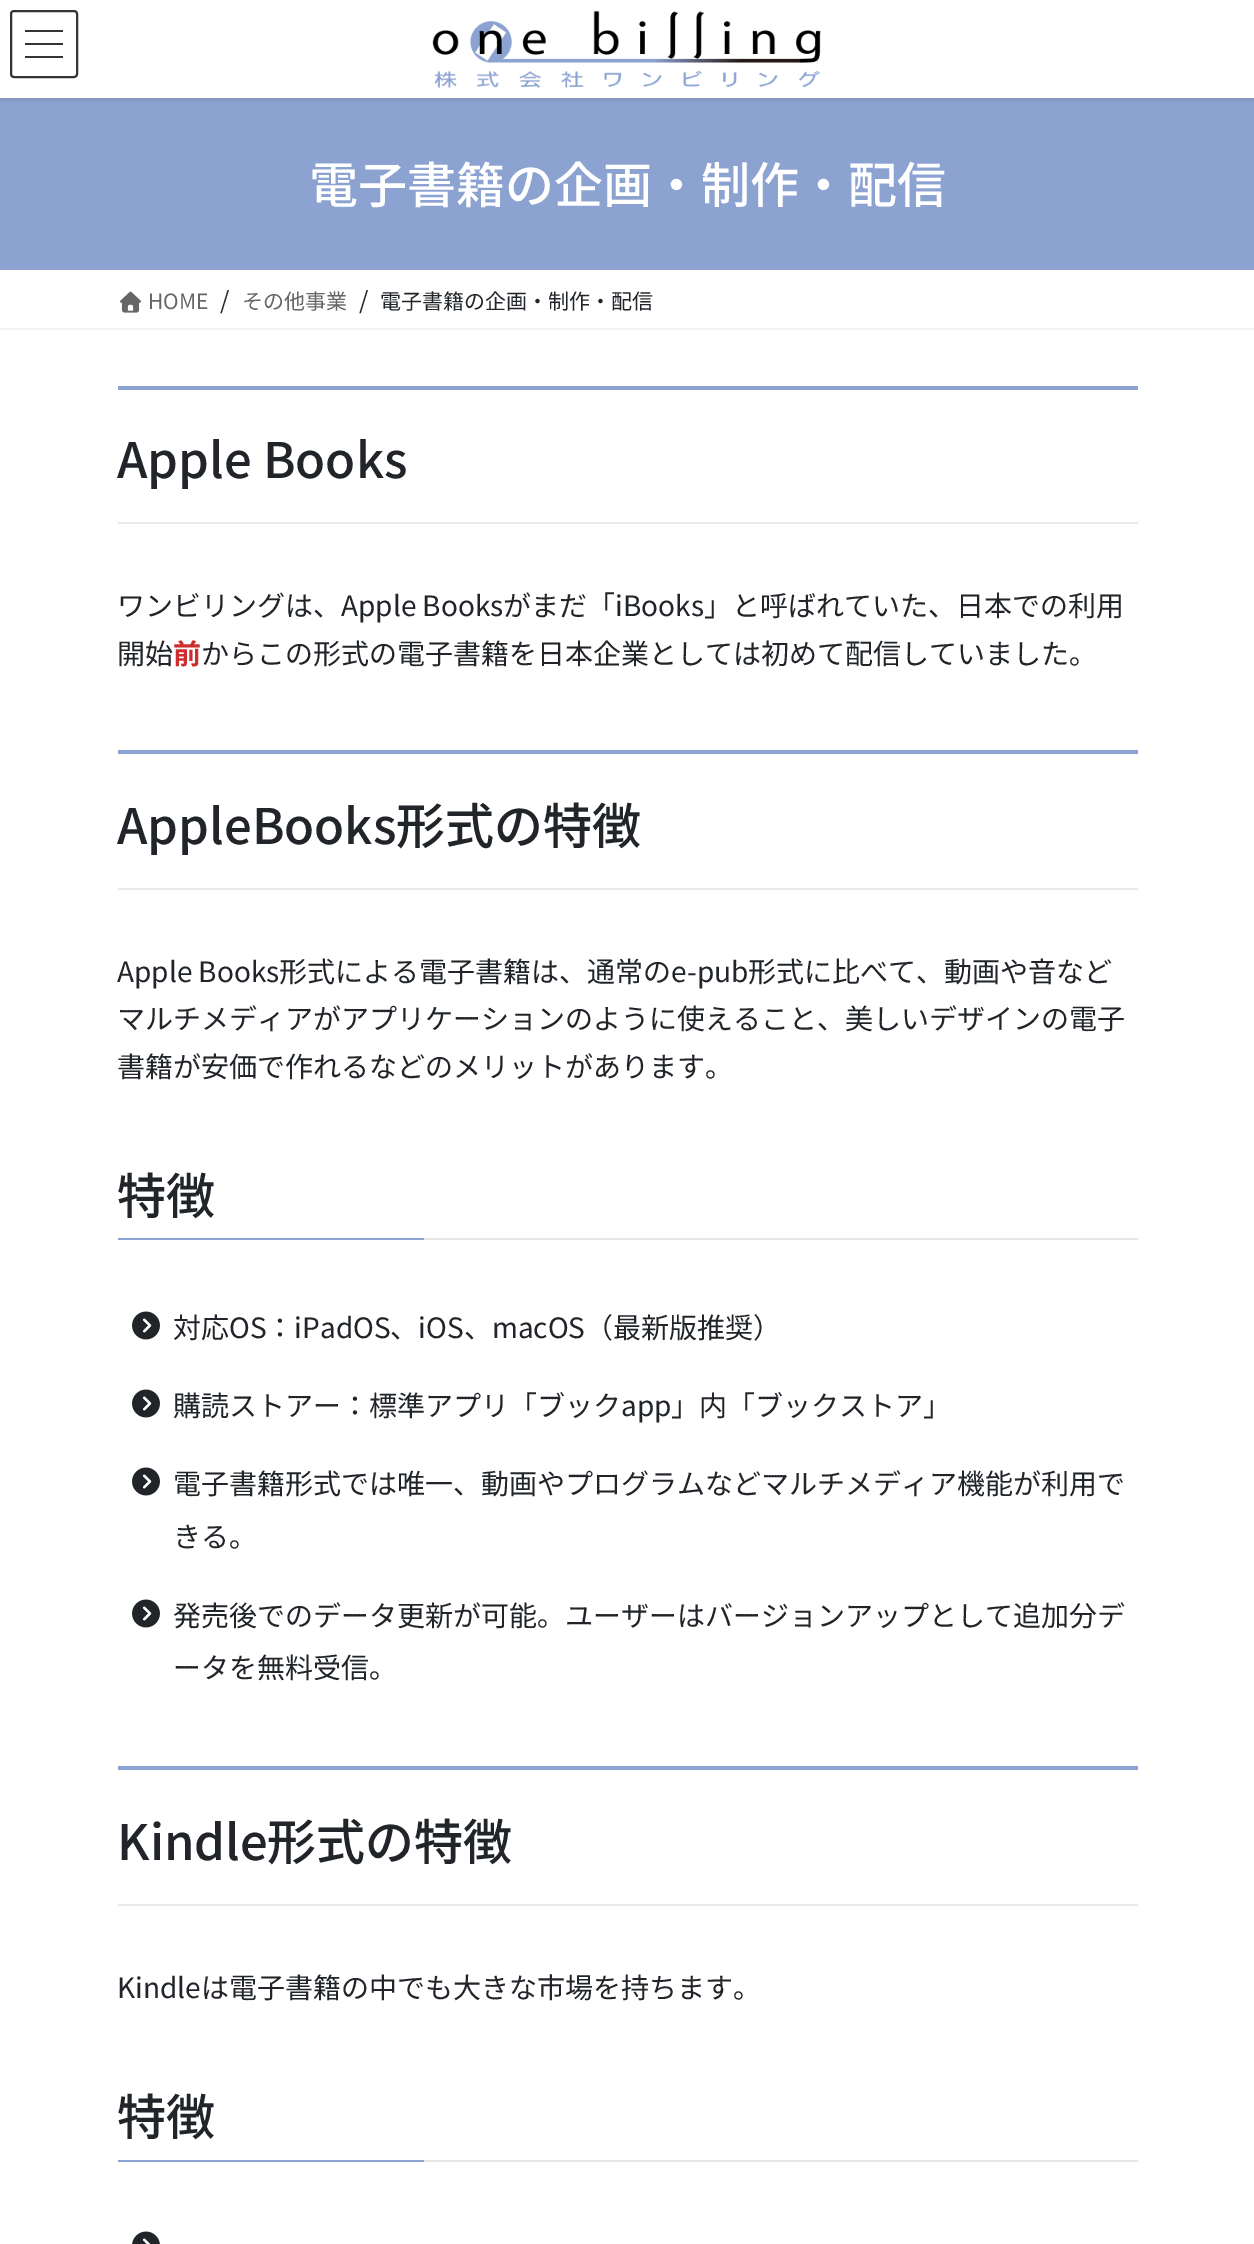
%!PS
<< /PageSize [1254 2244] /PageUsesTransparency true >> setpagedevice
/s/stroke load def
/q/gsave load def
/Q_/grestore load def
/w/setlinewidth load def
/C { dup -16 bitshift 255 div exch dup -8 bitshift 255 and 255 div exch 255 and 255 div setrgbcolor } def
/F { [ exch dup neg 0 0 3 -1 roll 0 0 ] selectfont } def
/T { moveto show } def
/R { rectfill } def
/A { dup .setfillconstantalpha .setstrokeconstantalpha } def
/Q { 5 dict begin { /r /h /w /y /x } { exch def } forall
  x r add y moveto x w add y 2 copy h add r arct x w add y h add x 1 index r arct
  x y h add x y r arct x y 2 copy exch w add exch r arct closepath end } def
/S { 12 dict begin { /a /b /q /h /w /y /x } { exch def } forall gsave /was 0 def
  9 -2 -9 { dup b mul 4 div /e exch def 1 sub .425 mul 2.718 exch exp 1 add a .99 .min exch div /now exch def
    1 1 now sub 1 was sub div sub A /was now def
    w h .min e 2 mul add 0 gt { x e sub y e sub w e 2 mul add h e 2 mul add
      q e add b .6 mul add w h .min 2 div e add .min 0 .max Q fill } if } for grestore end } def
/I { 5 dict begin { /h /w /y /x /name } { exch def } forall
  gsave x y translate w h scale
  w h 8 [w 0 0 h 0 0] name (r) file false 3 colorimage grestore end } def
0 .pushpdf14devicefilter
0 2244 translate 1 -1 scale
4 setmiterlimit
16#FFFFFF C
0 0 1254 2244 R
16#8CA3D1 C
0 98 1254 172 R
q
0 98 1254 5 rectclip
16#000000 C
0 2 1254 98 0 3 .1 S
Q_
(1.rgb) 432 10 389 78 I
16#333333 C
25 30 38 2 R
25 43 38 2 R
25 56 38 2 R
2 w
11 11 66 66 3 Q s
/NotoSansJP-Medium 49 F
16#FFFFFF C
(電子書籍の企画・制作・配信) 309 203 T
16#F2F2F2 C
0 328 1254 2 R
(2.rgb) 120 291 21 22 I
/NotoSansJP-Regular 21 F
16#666666 C
(HOME) 148 309 T
/NotoSansJP-Regular 24 F
16#212529 C
(/) 220 309 T
/NotoSansJP-Regular 21 F
16#666666 C
(その他事業) 242 309 T
/NotoSansJP-Regular 24 F
16#212529 C
(/) 359 309 T
/NotoSansJP-Regular 21 F
(電子書籍の企画・制作・配信) 380 309 T
16#8CA3D1 C
118 386 1020 4 R
16#E9E9E9 C
118 522 1020 2 R
/NotoSansJP-Medium 49 F
16#212529 C
(Apple Books) 117 478 T
/NotoSansJP-Regular 28 F
(ワンビリングは、Apple Booksがまだ「iBooks」と呼ばれていた、日本での利用) 117 616 T
(開始) 117 664 T
/NotoSansJP-Bold 28 F
16#CF2E2E C
(前) 173 664 T
/NotoSansJP-Regular 28 F
16#212529 C
(からこの形式の電子書籍を日本企業としては初めて配信していました。) 201 664 T
16#8CA3D1 C
118 750 1020 4 R
16#E9E9E9 C
118 888 1020 2 R
/NotoSansJP-Medium 49 F
16#212529 C
(AppleBooks形式の特徴) 117 844 T
/NotoSansJP-Regular 28 F
(Apple Books形式による電子書籍は、通常のe-pub形式に比べて、動画や音など) 117 982 T
(マルチメディアがアプリケーションのように使えること、美しいデザインの電子) 117 1029 T
(書籍が安価で作れるなどのメリットがあります。) 117 1077 T
16#E6E6E6 C
424 1238 714 2 R
/NotoSansJP-Medium 49 F
16#212529 C
(特徴) 117 1214 T
16#8CA3D1 C
118 1238 306 2 R
(3.rgb) 132 1311 28 29 I
/NotoSansJP-Regular 28 F
16#212529 C
(対応OS：iPadOS、iOS、macOS（最新版推奨）) 173 1338 T
(3.rgb) 132 1389 28 29 I
(購読ストアー：標準アプリ「ブックapp」内「ブックストア」) 173 1416 T
(3.rgb) 132 1467 28 29 I
(電子書籍形式では唯一、動画やプログラムなどマルチメディア機能が利用で) 173 1494 T
(きる。) 173 1547 T
(3.rgb) 132 1599 28 29 I
(発売後でのデータ更新が可能。ユーザーはバージョンアップとして追加分デ) 173 1626 T
(ータを無料受信。) 173 1678 T
16#8CA3D1 C
118 1766 1020 4 R
16#E9E9E9 C
118 1904 1020 2 R
/NotoSansJP-Medium 49 F
16#212529 C
(Kindle形式の特徴) 117 1860 T
/NotoSansJP-Regular 28 F
(Kindleは電子書籍の中でも大きな市場を持ちます。) 117 1998 T
16#E6E6E6 C
424 2160 714 2 R
/NotoSansJP-Medium 49 F
16#212529 C
(特徴) 117 2135 T
16#8CA3D1 C
118 2160 306 2 R
(4.rgb) 132 2231 28 13 I
.poppdf14devicefilter showpage
